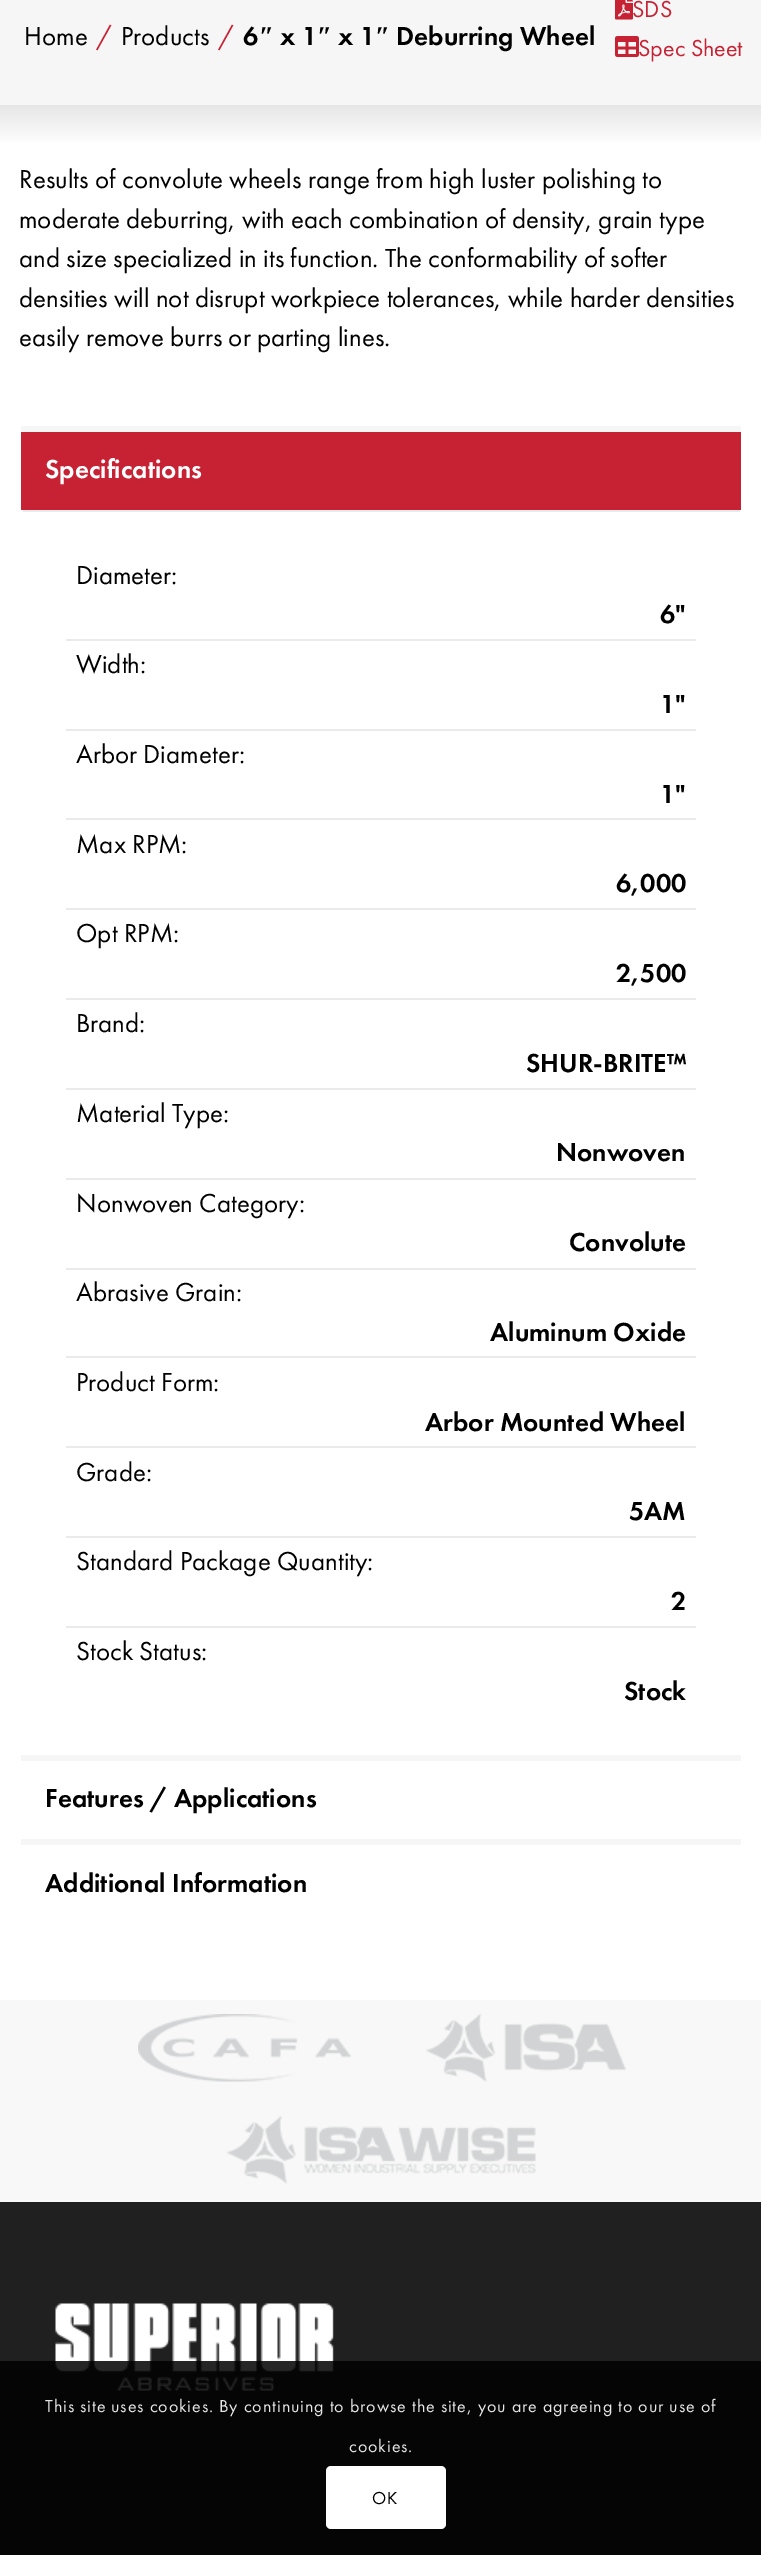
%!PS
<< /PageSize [761 2555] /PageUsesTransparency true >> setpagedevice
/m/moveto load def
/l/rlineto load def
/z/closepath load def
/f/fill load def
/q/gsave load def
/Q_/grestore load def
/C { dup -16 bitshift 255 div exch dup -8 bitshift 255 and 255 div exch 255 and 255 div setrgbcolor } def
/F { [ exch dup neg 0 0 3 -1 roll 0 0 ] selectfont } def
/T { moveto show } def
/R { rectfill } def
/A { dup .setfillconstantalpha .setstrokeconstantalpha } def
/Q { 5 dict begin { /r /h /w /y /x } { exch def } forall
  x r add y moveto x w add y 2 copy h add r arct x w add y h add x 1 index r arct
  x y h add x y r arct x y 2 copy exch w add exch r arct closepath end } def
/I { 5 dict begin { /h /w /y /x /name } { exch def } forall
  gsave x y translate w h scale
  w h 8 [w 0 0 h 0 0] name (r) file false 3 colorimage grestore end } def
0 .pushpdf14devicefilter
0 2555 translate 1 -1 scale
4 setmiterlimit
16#FFFFFF C
0 0 761 2555 R
16#F6F6F6 C
0 0 761 105 R
/FuturaPT-Regular 27 F
16#000000 C
(Home) 24 45 T
16#C72233 C
(/) 96 45 T
16#000000 C
(Products) 121 45 T
16#C72233 C
(/) 218 45 T
/FuturaPT-Medium 27 F
16#000000 C
(6) 243 45 T
/LiberationSerif-Bold 27 F
(″) 259 45 T
/FuturaPT-Medium 27 F
(x 1) 280 45 T
/LiberationSerif-Bold 27 F
(″) 317 45 T
/FuturaPT-Medium 27 F
(x 1) 338 45 T
/LiberationSerif-Bold 27 F
(″) 375 45 T
/FuturaPT-Medium 27 F
(Deburring Wheel) 396 45 T
(1.rgb) 615 0 18 20 I
/FuturaPT-Regular 24 F
16#C72233 C
(SDS) 632 17 T
(2.rgb) 615 36 24 21 I
(Spec Sheet) 638 56 T
q 0 105 m 761 0 l 0 37 l -761 0 l z clip newpath
<< /ShadingType 2 /ColorSpace /DeviceRGB /Coords [381 105 381 146] /Extend [true true] /Function << /FunctionType 2 /Domain [0 1] /C0 [.902 .902 .902] /C1 [1 1 1] /N 1 >> >> shfill Q_
/FuturaPT-Regular 27 F
16#000000 C
(Results of convolute wheels range from high luster polishing to) 19 188 T
(moderate deburring, with each combination of density, grain type) 19 228 T
(and size specialized in its function. The conformability of softer) 19 267 T
(densities will not disrupt workpiece tolerances, while harder densities) 19 307 T
(easily remove burrs or parting lines.) 19 346 T
16#C72233 C
21 432 720 78 R
16#F6F6F6 C
21 426 720 6 R
/FuturaPT-Medium 27 F
16#FFFFFF C
(Specifications) 45 478 T
16#EAEAEA C
23 510 717 2 R
/FuturaPT-Regular 27 F
16#000000 C
(Diameter:) 76 584 T
/FuturaPT-Medium 27 F
(6") 660 623 T
16#EAEAEA C
66 639 630 2 R
/FuturaPT-Regular 27 F
16#000000 C
(Width:) 76 673 T
/FuturaPT-Medium 27 F
(1") 660 713 T
16#EAEAEA C
66 729 630 2 R
/FuturaPT-Regular 27 F
16#000000 C
(Arbor Diameter:) 76 763 T
/FuturaPT-Medium 27 F
(1") 660 803 T
16#EAEAEA C
66 818 630 2 R
/FuturaPT-Regular 27 F
16#000000 C
(Max RPM:) 76 853 T
/FuturaPT-Medium 27 F
(6,000) 616 892 T
16#EAEAEA C
66 908 630 2 R
/FuturaPT-Regular 27 F
16#000000 C
(Opt RPM:) 76 942 T
/FuturaPT-Medium 27 F
(2,500) 616 982 T
16#EAEAEA C
66 998 630 2 R
/FuturaPT-Regular 27 F
16#000000 C
(Brand:) 76 1032 T
/FuturaPT-Medium 27 F
(SHUR-BRITE™) 526 1072 T
16#EAEAEA C
66 1088 630 2 R
/FuturaPT-Regular 27 F
16#000000 C
(Material Type:) 76 1122 T
/FuturaPT-Medium 27 F
(Nonwoven) 556 1161 T
16#EAEAEA C
66 1178 630 2 R
/FuturaPT-Regular 27 F
16#000000 C
(Nonwoven Category:) 76 1212 T
/FuturaPT-Medium 27 F
(Convolute) 569 1251 T
16#EAEAEA C
66 1268 630 2 R
/FuturaPT-Regular 27 F
16#000000 C
(Abrasive Grain:) 76 1301 T
/FuturaPT-Medium 27 F
(Aluminum Oxide) 490 1341 T
16#EAEAEA C
66 1356 630 2 R
/FuturaPT-Regular 27 F
16#000000 C
(Product Form:) 76 1391 T
/FuturaPT-Medium 27 F
(Arbor Mounted Wheel) 425 1431 T
16#EAEAEA C
66 1446 630 2 R
/FuturaPT-Regular 27 F
16#000000 C
(Grade:) 76 1481 T
/FuturaPT-Medium 27 F
(5AM) 629 1520 T
16#EAEAEA C
66 1536 630 2 R
/FuturaPT-Regular 27 F
16#000000 C
(Standard Package Quantity:) 76 1570 T
/FuturaPT-Medium 27 F
(2) 671 1610 T
16#EAEAEA C
66 1626 630 2 R
/FuturaPT-Regular 27 F
16#000000 C
(Stock Status:) 76 1660 T
/FuturaPT-Medium 27 F
(Stock) 624 1700 T
16#F6F6F6 C
21 1755 720 6 R
16#000000 C
(Features / Applications) 45 1807 T
16#F6F6F6 C
21 1839 720 6 R
16#000000 C
(Additional Information) 45 1892 T
16#F8F8F8 C
0 2000 761 202 R
(3.rgb) 138 2014 213 68 I
(4.rgb) 426 2014 200 68 I
(5.rgb) 226 2116 310 68 I
16#202020 C
0 2202 761 353 R
(6.rgb) 55 2303 279 88 I
0.85 A
16#000000 C
0 2361 761 194 R
/FuturaPT-Regular 18 F
1 A
16#E6E6E6 C
45 2412 m .9 0 (This site uses cookies. By continuing to browse the site, you are agreeing to our use of) ashow
349 2452 m .9 0 (cookies.) ashow
16#FFFFFF C
326 2466 120 63 5 Q f
16#000000 C
372 2504 m .9 0 (OK) ashow
.poppdf14devicefilter showpage
